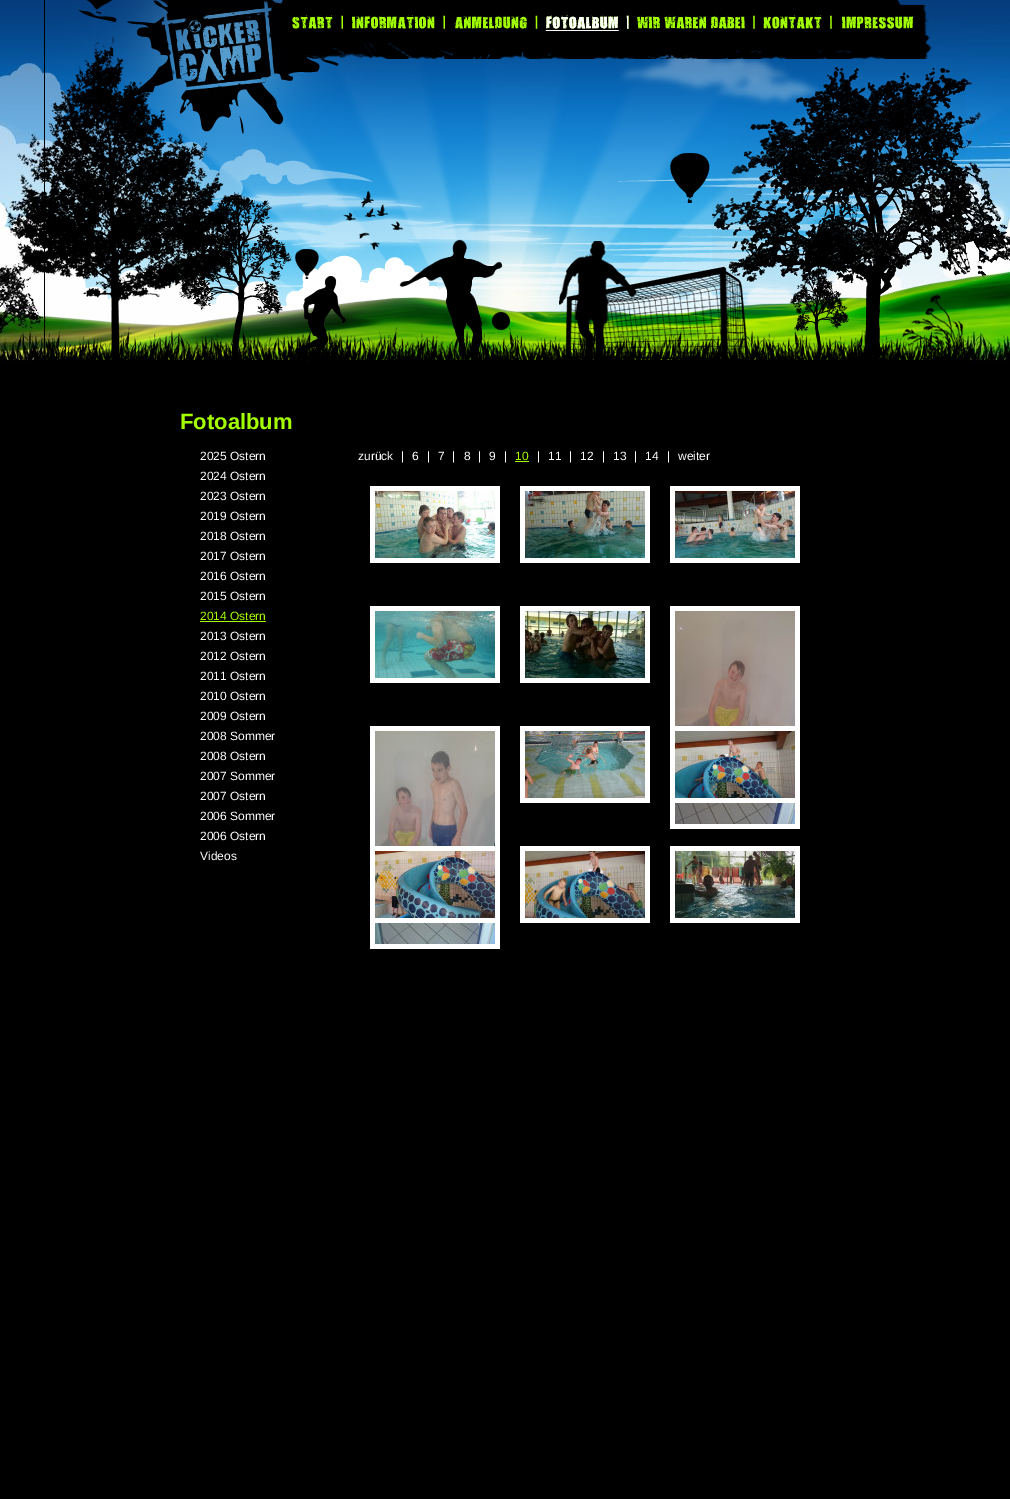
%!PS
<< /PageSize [1010 1499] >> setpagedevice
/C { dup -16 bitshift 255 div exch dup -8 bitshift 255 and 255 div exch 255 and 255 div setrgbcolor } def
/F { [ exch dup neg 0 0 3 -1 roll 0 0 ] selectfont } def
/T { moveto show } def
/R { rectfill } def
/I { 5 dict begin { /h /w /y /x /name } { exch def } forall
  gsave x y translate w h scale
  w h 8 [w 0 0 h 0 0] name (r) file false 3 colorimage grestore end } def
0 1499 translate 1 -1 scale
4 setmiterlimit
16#000000 C
0 0 1010 1499 R
(1.rgb) 0 0 44 363 I
(2.rgb) 966 0 44 363 I
(3.rgb) 45 0 921 363 I
(4.rgb) 292 15 51 14 I
(5.rgb) 351 15 94 15 I
(6.rgb) 454 15 84 15 I
(7.rgb) 545 15 84 16 I
(8.rgb) 637 15 118 15 I
(9.rgb) 763 15 69 15 I
(10.rgb) 842 15 71 15 I
/LiberationSans-Bold 22 F
16#A3FE00 C
(Fotoalbum) 180 429 T
/LiberationSans-Regular 12 F
16#FFFFFF C
(2025 Ostern) 200 460 T
(2024 Ostern) 200 480 T
(2023 Ostern) 200 500 T
(2019 Ostern) 200 520 T
(2018 Ostern) 200 540 T
(2017 Ostern) 200 560 T
(2016 Ostern) 200 580 T
(2015 Ostern) 200 600 T
16#A3FE00 C
(2014 Ostern) 200 620 T
200 621 66 1 R
16#FFFFFF C
(2013 Ostern) 200 640 T
(2012 Ostern) 200 660 T
(2011 Ostern) 200 680 T
(2010 Ostern) 200 700 T
(2009 Ostern) 200 720 T
(2008 Sommer) 200 740 T
(2008 Ostern) 200 760 T
(2007 Sommer) 200 780 T
(2007 Ostern) 200 800 T
(2006 Sommer) 200 820 T
(2006 Ostern) 200 840 T
(Videos) 200 860 T
(zurück) 358 460 T
(|) 401 460 T
(6) 412 460 T
(|) 427 460 T
(7) 438 460 T
(|) 452 460 T
(8) 464 460 T
(|) 478 460 T
(9) 489 460 T
(|) 504 460 T
16#A3FE00 C
(10) 515 460 T
515 461 14 1 R
16#FFFFFF C
(|) 537 460 T
(11) 548 460 T
(|) 569 460 T
(12) 580 460 T
(|) 602 460 T
(13) 613 460 T
(|) 634 460 T
(14) 645 460 T
(|) 667 460 T
(weiter) 678 460 T
370 486 130 77 R
(11.rgb) 375 491 120 67 I
520 486 130 77 R
(12.rgb) 525 491 120 67 I
670 486 130 77 R
(13.rgb) 675 491 120 67 I
370 606 130 77 R
(14.rgb) 375 611 120 67 I
520 606 130 77 R
(15.rgb) 525 611 120 67 I
670 606 130 223 R
(16.rgb) 675 611 120 213 I
370 726 130 223 R
(17.rgb) 375 731 120 213 I
520 726 130 77 R
(18.rgb) 525 731 120 67 I
675 726 120 77 R
(19.rgb) 675 731 120 67 I
375 846 120 77 R
(20.rgb) 375 851 120 67 I
520 846 130 77 R
(21.rgb) 525 851 120 67 I
670 846 130 77 R
(22.rgb) 675 851 120 67 I
showpage
